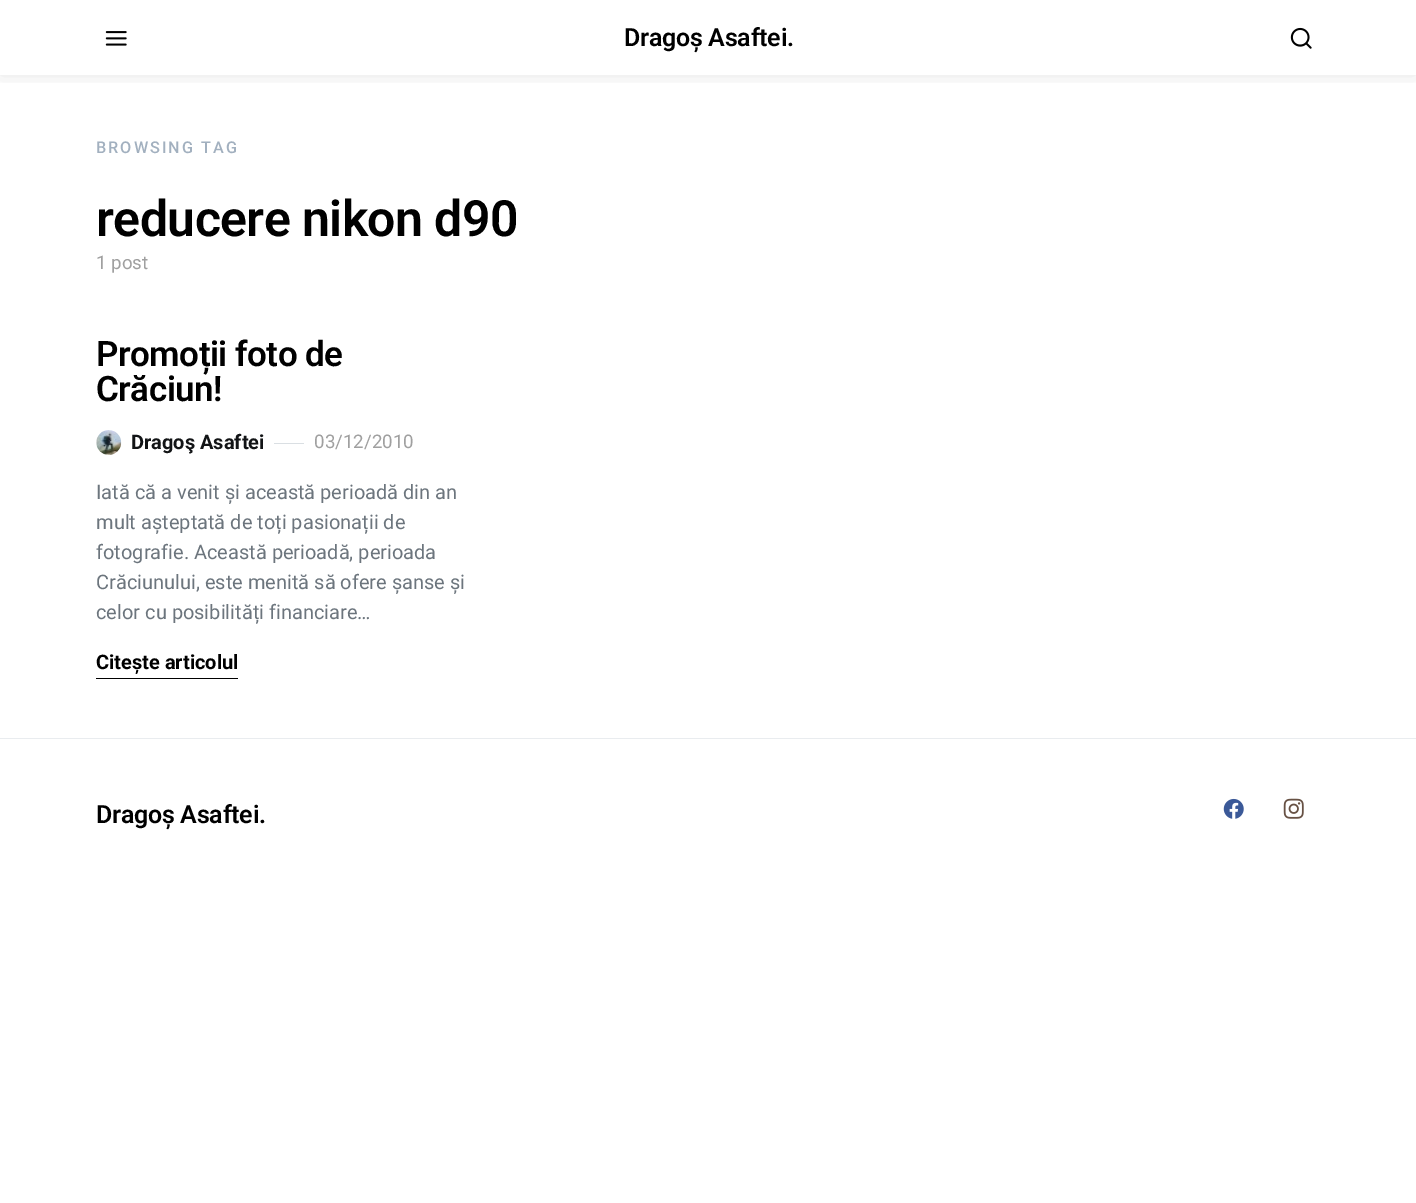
%!PS
<< /PageSize [1416 1203] /PageUsesTransparency true >> setpagedevice
/m/moveto load def
/q/gsave load def
/Q_/grestore load def
/C { dup -16 bitshift 255 div exch dup -8 bitshift 255 and 255 div exch 255 and 255 div setrgbcolor } def
/F { [ exch dup neg 0 0 3 -1 roll 0 0 ] selectfont } def
/T { moveto show } def
/R { rectfill } def
/A { dup .setfillconstantalpha .setstrokeconstantalpha } def
/Q { 5 dict begin { /r /h /w /y /x } { exch def } forall
  x r add y moveto x w add y 2 copy h add r arct x w add y h add x 1 index r arct
  x y h add x y r arct x y 2 copy exch w add exch r arct closepath end } def
/S { 12 dict begin { /a /b /q /h /w /y /x } { exch def } forall gsave /was 0 def
  9 -2 -9 { dup b mul 4 div /e exch def 1 sub .425 mul 2.718 exch exp 1 add a .99 .min exch div /now exch def
    1 1 now sub 1 was sub div sub A /was now def
    w h .min e 2 mul add 0 gt { x e sub y e sub w e 2 mul add h e 2 mul add
      q e add b .6 mul add w h .min 2 div e add .min 0 .max Q fill } if } for grestore end } def
/I { 5 dict begin { /h /w /y /x /name } { exch def } forall
  gsave x y translate w h scale
  w h 8 [w 0 0 h 0 0] name (r) file false 3 colorimage grestore end } def
0 .pushpdf14devicefilter
0 1203 translate 1 -1 scale
4 setmiterlimit
16#FFFFFF C
0 0 1416 1203 R
q
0 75 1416 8 rectclip
16#000000 C
0 0 1416 75 0 10 .1 S
Q_
(1.rgb) 105 31 22 15 I
/Roboto-SemiBold 25 F
16#000000 C
624 46 m -.25 0 (Dragoș Asaftei.) ashow
(2.rgb) 1290 27 22 22 I
/Roboto-Medium 16.25 F
16#A2B0BF C
96 153 m 2 0 (BROWSING TAG) ashow
/Roboto-SemiBold 50 F
16#000000 C
96 236 m -.6 0 (reducere nikon d90) ashow
/Roboto-Regular 18.75 F
16#A0A0A0 C
(1 post) 96 269 T
/Roboto-SemiBold 35 F
16#000000 C
96 366 m -.5 0 (Promoții foto de) ashow
96 401 m -.5 0 (Crăciun!) ashow
(3.rgb) 96 430 26 25 I
/Roboto-Bold 20 F
16#121416 C
(Dragoş Asaftei) 131 449 T
16#DADFE3 C
274 443 30 1 R
/Roboto-Regular 18.75 F
16#A0A0A0 C
(03/12/2010) 314 448 T
/Roboto-Regular 20 F
16#6C757D C
(Iată că a venit și această perioadă din an) 96 499 T
(mult așteptată de toți pasionații de) 96 529 T
(fotografie. Această perioadă, perioada) 96 559 T
(Crăciunului, este menită să ofere șanse și) 96 589 T
(celor cu posibilități financiare…) 96 619 T
/Roboto-Bold 20 F
16#000000 C
(Citește articolul) 96 669 T
96 678 142 1 R
16#E9ECEF C
0 738 1416 1 R
/Roboto-SemiBold 25 F
16#000000 C
96 823 m -.25 0 (Dragoș Asaftei.) ashow
(4.rgb) 1223 798 21 21 I
(5.rgb) 1283 798 21 21 I
.poppdf14devicefilter showpage
